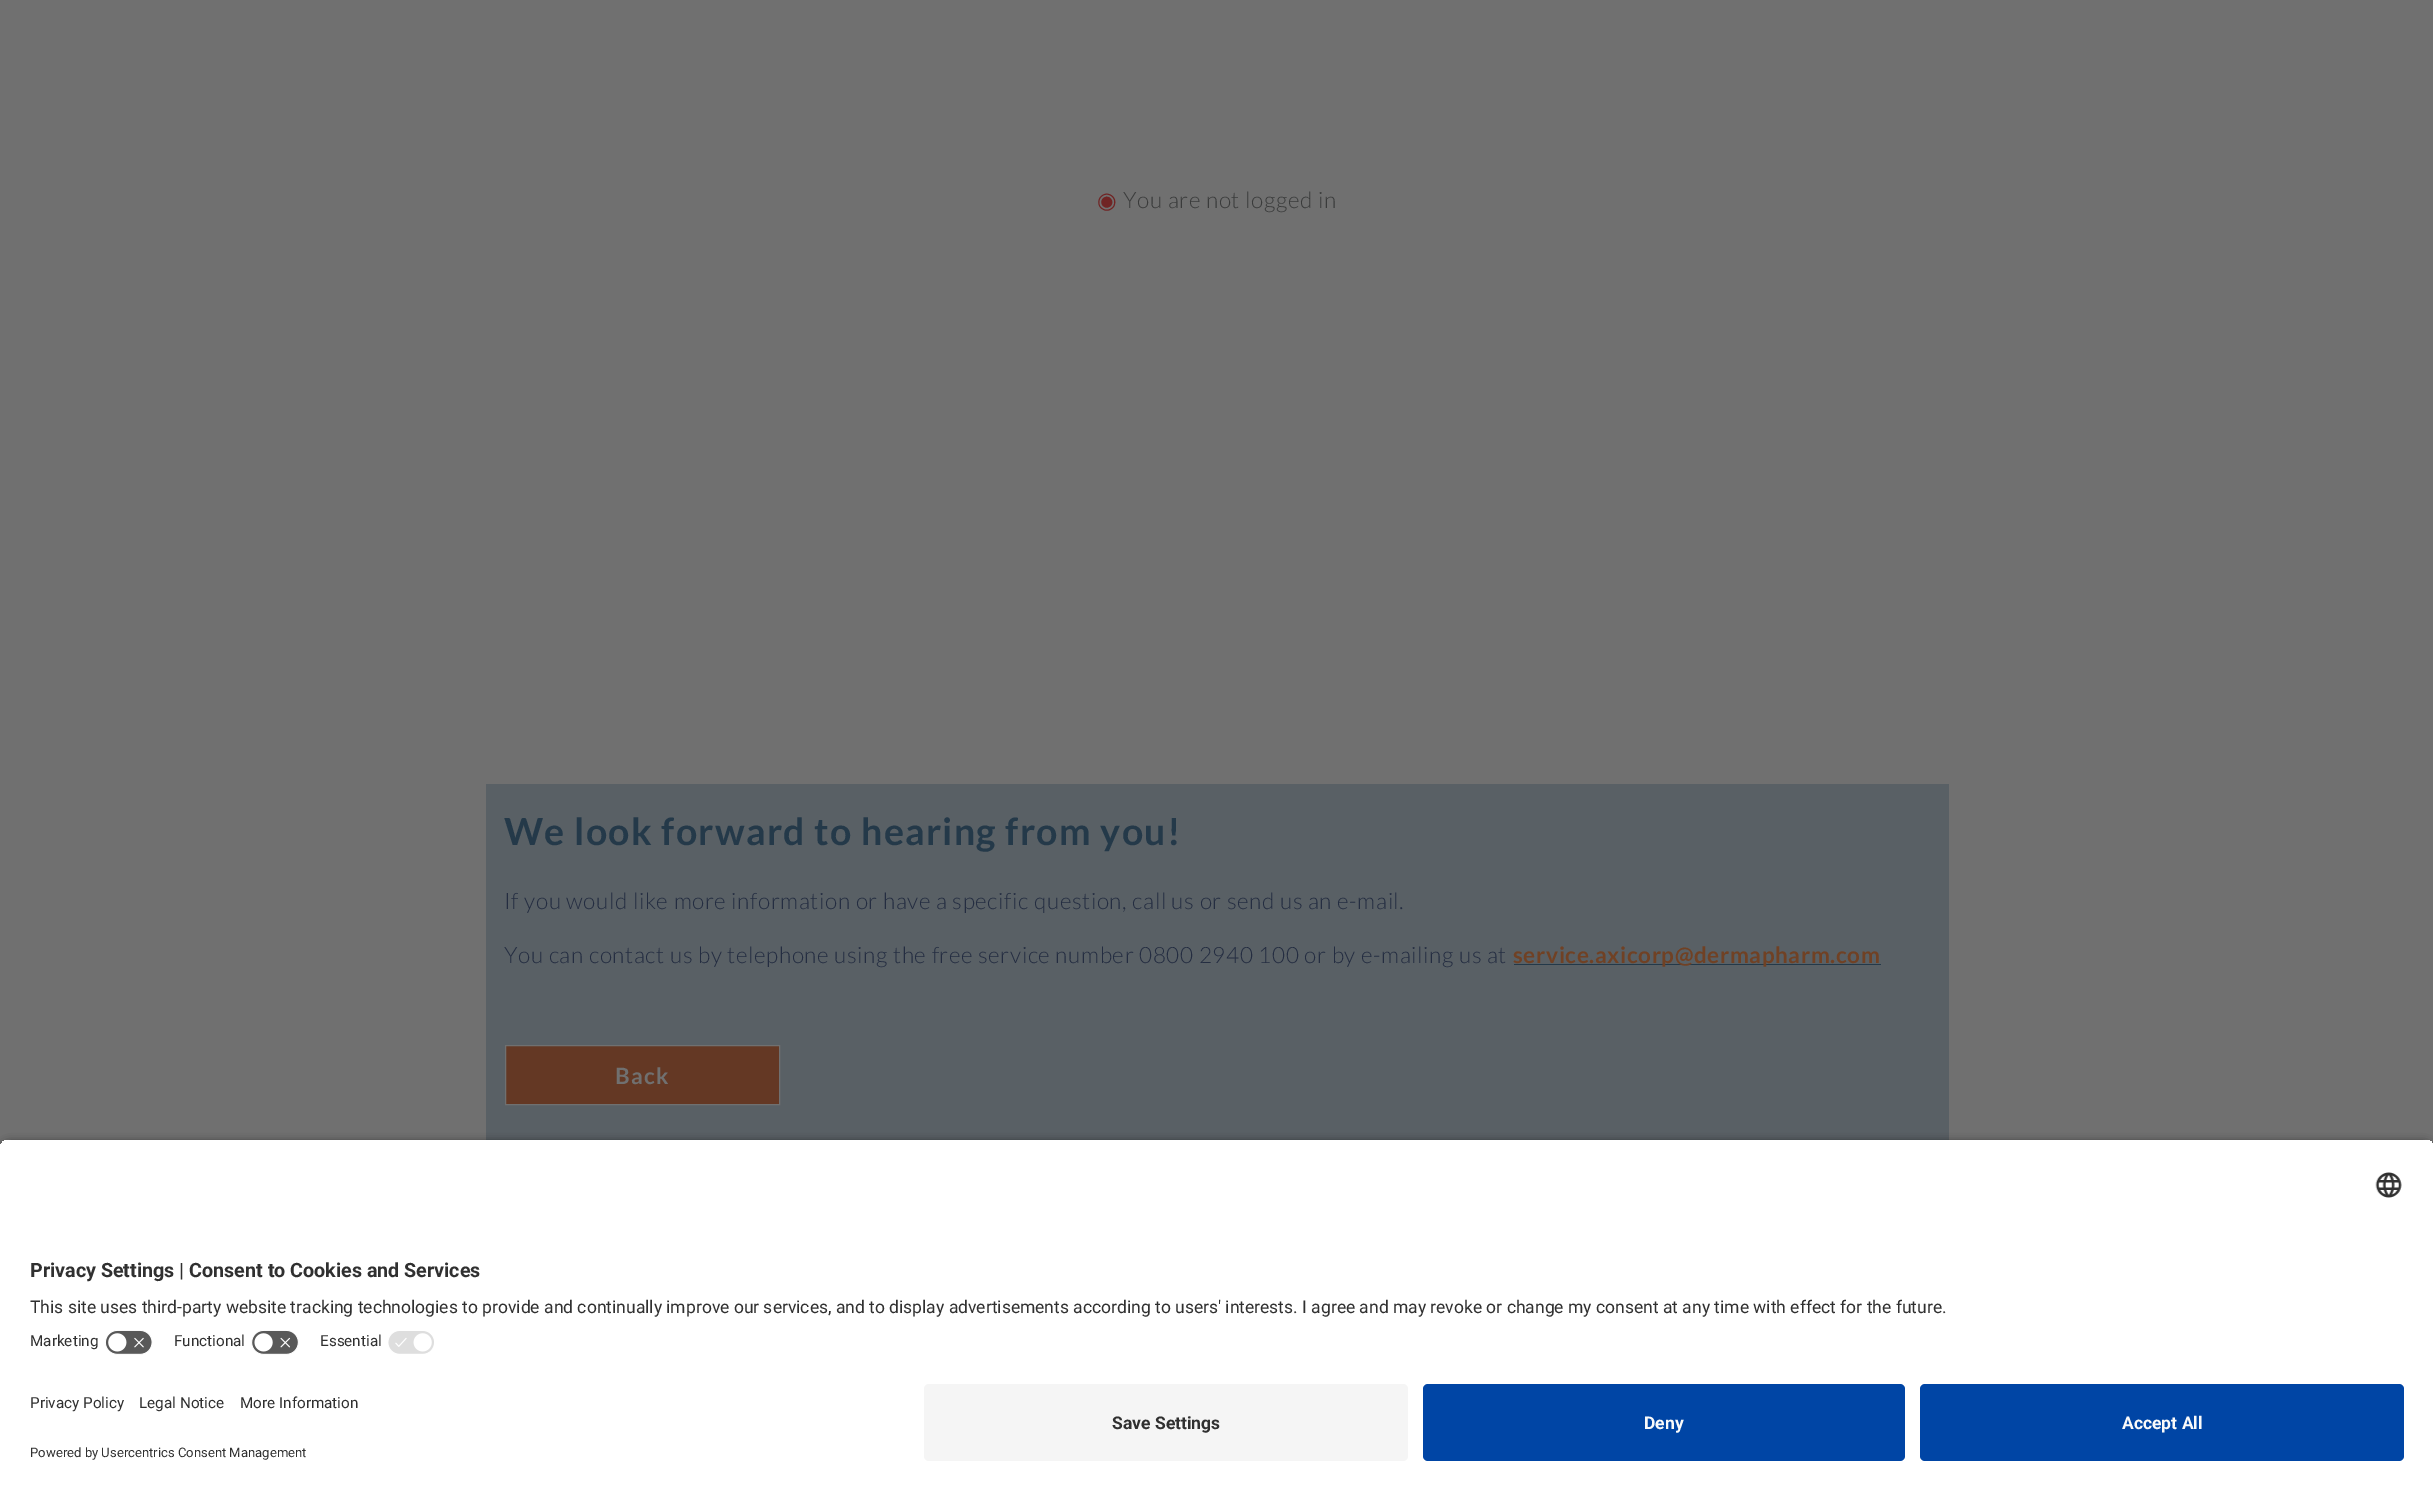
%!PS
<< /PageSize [2433 1491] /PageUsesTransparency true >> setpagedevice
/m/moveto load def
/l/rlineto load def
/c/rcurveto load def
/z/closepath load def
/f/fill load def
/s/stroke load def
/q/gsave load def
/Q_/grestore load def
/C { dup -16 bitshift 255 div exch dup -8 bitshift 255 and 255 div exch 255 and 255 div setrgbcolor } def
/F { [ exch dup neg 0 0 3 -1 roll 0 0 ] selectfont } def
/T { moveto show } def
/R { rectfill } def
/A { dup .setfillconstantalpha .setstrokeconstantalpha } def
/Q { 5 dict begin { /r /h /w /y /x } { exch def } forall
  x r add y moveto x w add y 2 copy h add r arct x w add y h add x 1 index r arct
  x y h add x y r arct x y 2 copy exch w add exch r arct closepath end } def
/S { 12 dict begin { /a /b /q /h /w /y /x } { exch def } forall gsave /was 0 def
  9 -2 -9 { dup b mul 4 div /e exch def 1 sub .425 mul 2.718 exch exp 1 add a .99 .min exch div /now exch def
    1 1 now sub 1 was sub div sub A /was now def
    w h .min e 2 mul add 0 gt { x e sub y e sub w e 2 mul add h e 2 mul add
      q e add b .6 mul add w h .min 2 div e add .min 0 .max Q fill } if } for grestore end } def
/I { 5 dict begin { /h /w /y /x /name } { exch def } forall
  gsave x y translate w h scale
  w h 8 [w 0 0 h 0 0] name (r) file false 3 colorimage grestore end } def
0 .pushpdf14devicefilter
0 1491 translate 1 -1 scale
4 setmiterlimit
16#707070 C
0 0 2433 1491 R
/DejaVuSans-Regular 22.5 F
16#702424 C
1097 208 m .62 0 (◉) ashow
/Lato-Light 22.5 F
16#3A3B3B C
1123 208 m .62 0 (You are not logged in) ashow
16#596065 C
486 784 1463 356 R
/Lato-Bold 37.5 F
16#243949 C
504 845 m 1.25 0 (We look forward to hearing from you!) ashow
/Lato-Light 22.5 F
16#242D41 C
504 909 m .62 0 (If you would like more information or have a specific question, call us or send us an e-mail.) ashow
504 963 m .62 0 (You can contact us by telephone using the free service number 0800 2940 100 or by e-mailing us at) ashow
16#243949 C
1514 964 367 1 R
/Lato-Bold 22.5 F
16#704124 C
1513 963 m .62 0 (service.axicorp@dermapharm.com) ashow
16#643824 C
505.5 1045.5 m 274 0 l 0 59 l -274 0 l z q f Q_
16#707070 C
s
615 1084 m 1.25 0 (Back) ashow
16#000000 C
0 1143 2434 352 10 4.5 .8 S
q
10 1139 m 2414 0 l 5.5 0 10 4.5 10 10 c 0 225 l -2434 0 l 0 -225 l 0 -5.5 4.5 -10 10 -10 c z clip newpath
16#FFFFFF C
0 1140 2433 234 R
0 1140 2433 184 R
Q_
(1.rgb) 2375 1172 27 26 I
/Roboto-Bold 19.7 F
16#303030 C
(Privacy Settings | Consent to Cookies and Services) 30 1277 T
/Roboto-Regular 17.5 F
(This site uses third-party website tracking technologies to provide and continually improve our services, and to display advertisements according to users' interests. I agree and may revoke or change my consent at any time with effect for the future.) 30 1313 T
/Roboto-Regular 15.25 F
(Marketing) 30 1346 T
(2.rgb) 105 1330 48 25 I
(Functional) 174 1346 T
(3.rgb) 251 1330 48 25 I
(Essential) 320 1346 T
(4.rgb) 388 1331 46 23 I
16#FFFFFF C
0 1374 2433 117 R
16#303030 C
(Privacy Policy) 30 1408 T
(Legal Notice) 139 1408 T
(More Information) 240 1408 T
/Roboto-Regular 13.1 F
(Powered by Usercentrics Consent Management) 30 1457 T
16#F5F5F5 C
924 1384 484 77 5 Q f
/Roboto-Bold 17.5 F
16#303030 C
(Save Settings) 1112 1429 T
16#0045A5 C
1423 1384 482 77 5 Q f
16#FAFAFA C
(Deny) 1644 1429 T
16#0045A5 C
1920 1384 484 77 5 Q f
16#FAFAFA C
(Accept All) 2122 1429 T
.poppdf14devicefilter showpage
